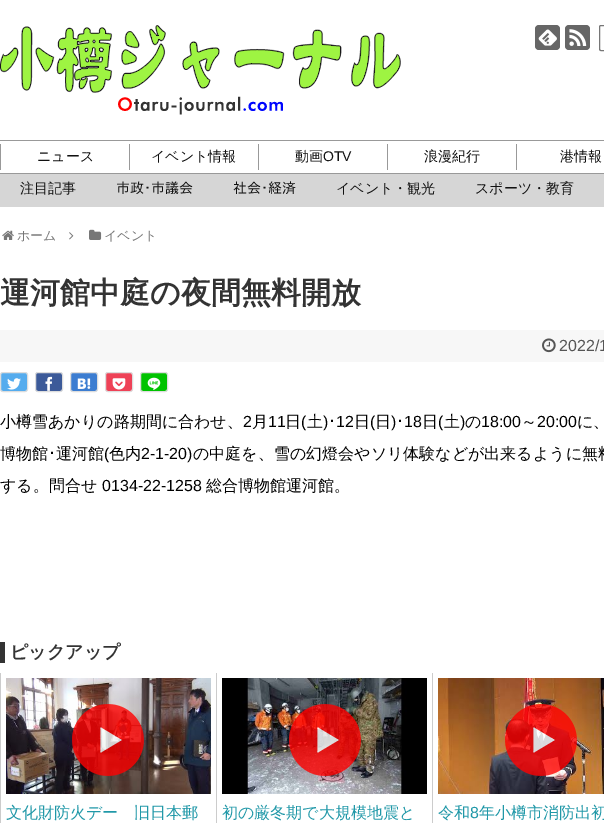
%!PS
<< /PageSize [604 823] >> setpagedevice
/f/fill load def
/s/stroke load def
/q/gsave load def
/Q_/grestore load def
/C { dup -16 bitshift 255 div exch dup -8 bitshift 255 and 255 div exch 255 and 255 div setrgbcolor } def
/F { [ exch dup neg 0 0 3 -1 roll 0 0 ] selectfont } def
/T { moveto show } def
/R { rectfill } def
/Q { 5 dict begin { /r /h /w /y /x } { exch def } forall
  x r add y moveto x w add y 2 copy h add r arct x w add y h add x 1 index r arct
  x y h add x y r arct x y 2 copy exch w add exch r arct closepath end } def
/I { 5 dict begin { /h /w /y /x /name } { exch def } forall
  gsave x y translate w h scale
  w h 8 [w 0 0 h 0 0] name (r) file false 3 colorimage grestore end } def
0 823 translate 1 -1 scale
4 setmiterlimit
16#FFFFFF C
0 0 604 823 R
(1.rgb) 0 25 401 90 I
16#666666 C
535 25 25 25 4 Q f
(2.rgb) 538 29 19 17 I
565 25 25 25 4 Q f
(3.rgb) 569 29 18 17 I
16#767676 C
599.5 25.5 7 25 1.5 Q s
16#999999 C
0 140 604 1 R
0 173 604 1 R
129 144 1 26 R
/WenQuanYiZenHei-Medium 14 F
16#111111 C
(イベント情報) 151 161 T
16#999999 C
258 144 1 26 R
16#111111 C
(動画) 295 161 T
/LiberationSans-Regular 14 F
(OTV) 323 161 T
16#999999 C
387 144 1 26 R
/WenQuanYiZenHei-Medium 14 F
16#111111 C
(浪漫紀行) 424 161 T
16#999999 C
516 144 1 26 R
16#111111 C
(港情報) 560 161 T
16#999999 C
0 144 1 26 R
16#111111 C
(ニュース) 37 161 T
16#D6D6D6 C
0 174 604 33 R
16#111111 C
(注目記事) 20 193 T
/IPAPGothic-Regular 14 F
(市政･市議会) 116 193 T
(社会･経済) 233 193 T
/WenQuanYiZenHei-Medium 14 F
(イベント・観光) 336 193 T
(スポーツ・教育) 475 193 T
(4.rgb) 2 230 12 10 I
/WenQuanYiZenHei-Medium 13 F
16#777777 C
(ホーム) 17 240 T
(5.rgb) 69 232 5 8 I
(6.rgb) 89 229 13 11 I
(イベント) 104 240 T
/WenQuanYiZenHei-Bold 30 F
16#333333 C
(運河館中庭の夜間無料開放) 0 303 T
16#F7F7F7 C
0 330 604 32 R
(7.rgb) 542 338 14 15 I
/LiberationSans-Regular 16 F
16#555555 C
(2022/1) 559 351 T
16#55ACEE C
.5 372.5 27 19 2.5 Q q f Q_
16#DDDDDD C
s
(8.rgb) 7 378 14 12 I
16#3C5A99 C
35.5 372.5 27 19 2.5 Q q f Q_
16#DDDDDD C
s
(9.rgb) 45 376 8 15 I
16#3C7DD1 C
70.5 372.5 27 19 2.5 Q q f Q_
16#DDDDDD C
s
(10.rgb) 77 378 14 11 I
16#EE4257 C
105.5 372.5 27 19 2.5 Q q f Q_
16#DDDDDD C
s
(11.rgb) 112 378 14 12 I
16#00C300 C
140.5 372.5 27 19 2.5 Q q f Q_
16#DDDDDD C
s
(12.rgb) 147 377 14 13 I
/WenQuanYiZenHei-Medium 16 F
16#000000 C
(小樽雪あかりの路期間に合わせ、) 0 427 T
/LiberationSans-Regular 16 F
(2) 243 427 T
/WenQuanYiZenHei-Medium 16 F
(月) 252 427 T
/LiberationSans-Regular 16 F
(11) 268 427 T
/WenQuanYiZenHei-Medium 16 F
(日) 285 427 T
/LiberationSans-Regular 16 F
(\() 301 427 T
/WenQuanYiZenHei-Medium 16 F
(土) 307 427 T
/LiberationSans-Regular 16 F
(\)) 323 427 T
/IPAPGothic-Regular 16 F
(･) 328 427 T
/LiberationSans-Regular 16 F
(12) 336 427 T
/WenQuanYiZenHei-Medium 16 F
(日) 354 427 T
/LiberationSans-Regular 16 F
(\() 370 427 T
/WenQuanYiZenHei-Medium 16 F
(日) 375 427 T
/LiberationSans-Regular 16 F
(\)) 391 427 T
/IPAPGothic-Regular 16 F
(･) 396 427 T
/LiberationSans-Regular 16 F
(18) 404 427 T
/WenQuanYiZenHei-Medium 16 F
(日) 422 427 T
/LiberationSans-Regular 16 F
(\() 438 427 T
/WenQuanYiZenHei-Medium 16 F
(土) 444 427 T
/LiberationSans-Regular 16 F
(\)) 460 427 T
/WenQuanYiZenHei-Medium 16 F
(の) 465 427 T
/LiberationSans-Regular 16 F
(18:00) 481 427 T
(20:00) 537 427 T
/WenQuanYiZenHei-Medium 16 F
(に、) 577 427 T
(～) 521 427 T
(博物館) 0 459 T
/IPAPGothic-Regular 16 F
(･) 48 459 T
/WenQuanYiZenHei-Medium 16 F
(運河館) 56 459 T
/LiberationSans-Regular 16 F
(\() 104 459 T
/WenQuanYiZenHei-Medium 16 F
(色内) 109 459 T
/LiberationSans-Regular 16 F
(2-1-20\)) 141 459 T
/WenQuanYiZenHei-Medium 16 F
(の中庭を、雪の幻燈会やソリ体験などが出来るように無料) 193 459 T
(する。問合せ) 0 491 T
/LiberationSans-Regular 16 F
(0134-22-1258) 102 491 T
/WenQuanYiZenHei-Medium 16 F
(総合博物館運河館。) 206 491 T
16#333333 C
0 642 5 21 R
/WenQuanYiZenHei-Bold 18 F
(ピックアップ) 10 658 T
16#CCCCCC C
216 673 1 150 R
0 673 1 150 R
(13.rgb) 6 678 205 116 I
(14.rgb) 72 704 72 72 I
/WenQuanYiZenHei-Medium 16 F
16#2098A8 C
(文化財防火デー　旧日本郵) 6 818 T
16#CCCCCC C
432 673 1 150 R
(15.rgb) 222 678 205 116 I
(16.rgb) 289 704 72 72 I
16#2098A8 C
(初の厳冬期で大規模地震と) 222 818 T
(17.rgb) 438 678 166 116 I
(18.rgb) 505 704 72 72 I
(令和) 438 818 T
/LiberationSans-Regular 16 F
(8) 470 818 T
/WenQuanYiZenHei-Medium 16 F
(年小樽市消防出初) 479 818 T
showpage
